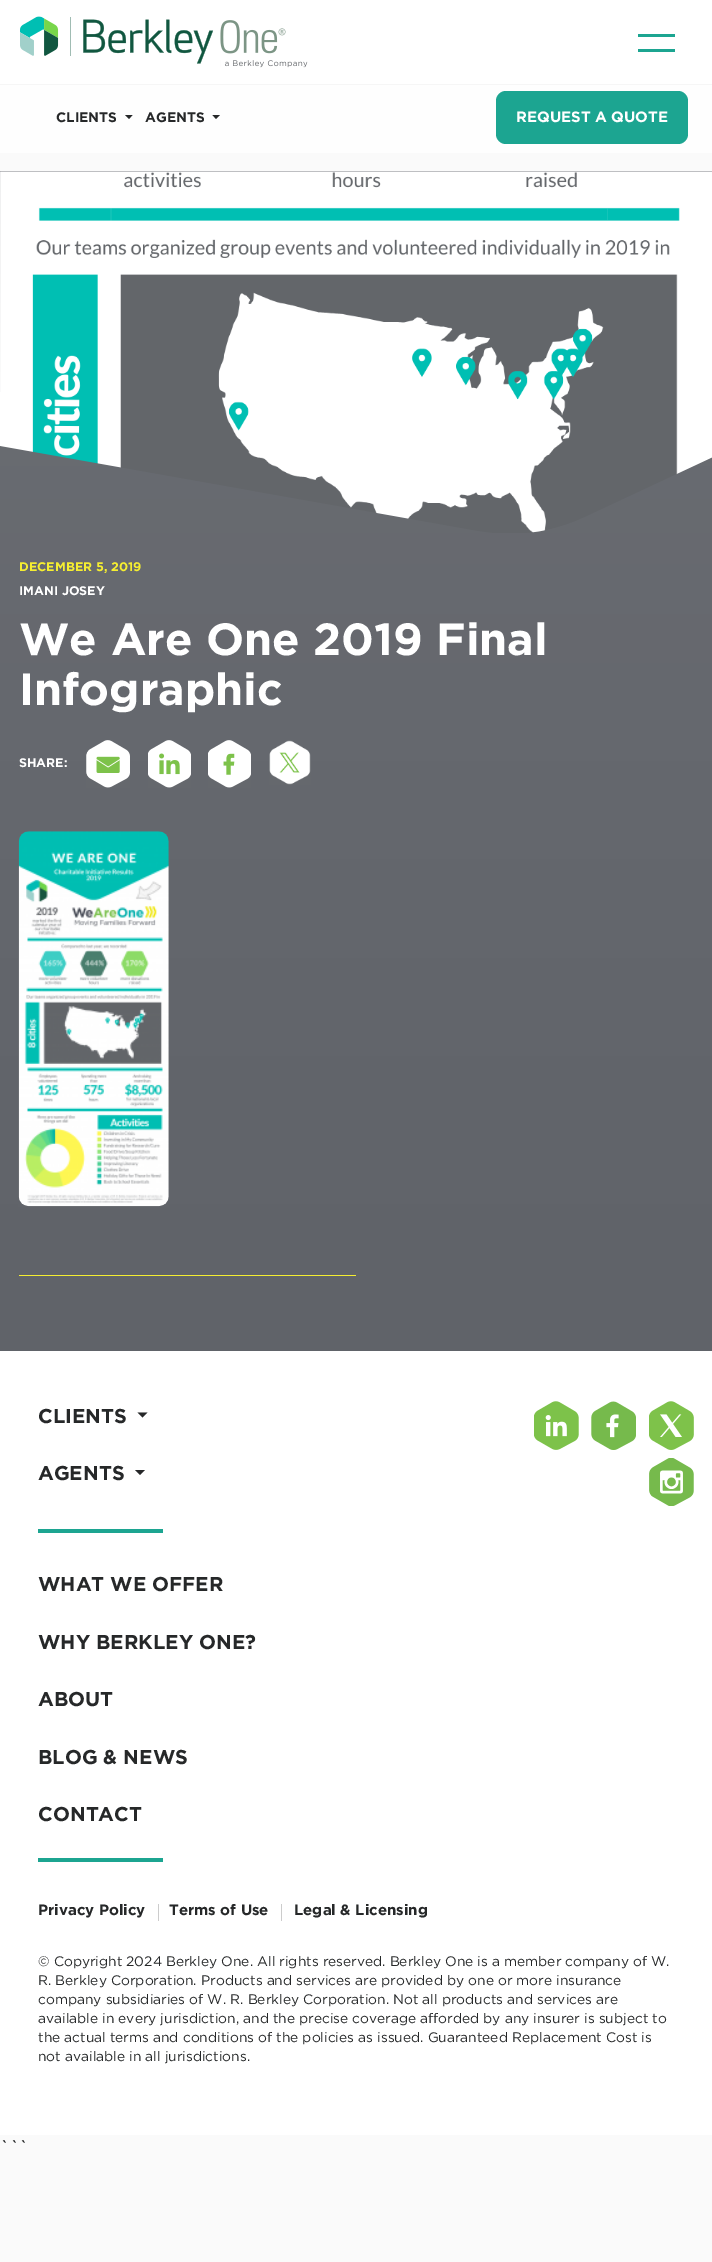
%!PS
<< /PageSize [712 2262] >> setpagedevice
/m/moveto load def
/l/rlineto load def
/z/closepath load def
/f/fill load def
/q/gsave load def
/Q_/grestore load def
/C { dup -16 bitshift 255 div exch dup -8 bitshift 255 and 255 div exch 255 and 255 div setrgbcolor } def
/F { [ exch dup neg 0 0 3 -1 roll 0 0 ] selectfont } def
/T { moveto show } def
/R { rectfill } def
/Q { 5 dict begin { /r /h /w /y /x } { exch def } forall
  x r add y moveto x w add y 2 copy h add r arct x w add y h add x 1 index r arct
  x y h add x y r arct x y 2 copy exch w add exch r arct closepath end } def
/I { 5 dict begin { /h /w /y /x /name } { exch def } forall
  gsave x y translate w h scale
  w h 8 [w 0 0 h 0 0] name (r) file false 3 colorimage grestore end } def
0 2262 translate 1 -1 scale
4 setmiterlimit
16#FAFAFA C
0 0 712 2262 R
16#FEFEFE C
0 85 712 68 R
16#FFFFFF C
0 0 712 84 R
16#F6F6F6 C
0 84 712 1 R
(1.rgb) 20 16 288 52 I
16#1CA591 C
638 34 37 3 R
638 49 37 3 R
/Gotham-Bold 13.75 F
16#262829 C
(CLIENTS) 56 122 T
125 115 m 7.5 0 l -3.5 4 l z f
(AGENTS) 145 122 T
212.5 115 m 7.5 0 l -4 4 l z f
16#1CA591 C
496 91 192 53 10 Q f
/Gotham-Bold 15 F
16#FFFFFF C
(REQUEST A QUOTE) 516 122 T
q 0 171 m 712 0 l 0 1180 l -712 0 l z clip newpath
<< /ShadingType 2 /ColorSpace /DeviceRGB /Coords [356 171 356 1351] /Extend [true true] /Function << /FunctionType 2 /Domain [0 1] /C0 [.416 .427 .447] /C1 [.376 .388 .412] /N 1 >> >> shfill Q_
(2.rgb) 0 171 712 362 I
/Gotham-Bold 12.5 F
16#F5EE31 C
(DECEMBER 5, 2019) 19 571 T
16#FFFFFF C
(IMANI JOSEY) 19 595 T
/Gotham-Bold 45 F
(We Are One 2019 Final) 19 655 T
(Infographic) 19 705 T
/Gotham-Bold 12.5 F
(SHARE:) 19 767 T
(3.rgb) 86 740 44 48 I
(4.rgb) 148 740 43 48 I
(5.rgb) 208 740 43 48 I
(6.rgb) 269 740 42 45 I
(7.rgb) 18 831 151 376 I
16#F5EE31 C
19 1275 337 1 R
16#FFFFFF C
0 1351 712 784 R
/Gotham-Bold 20 F
16#262829 C
(CLIENTS) 38 1423 T
137.5 1412.5 m 10 0 l -5 5 l z f
(AGENTS) 38 1480 T
135 1470 m 10 0 l -5 5 l z f
16#1CA591 C
38 1529 125 4 R
16#262829 C
(WHAT WE OFFER) 38 1591 T
(WHY BERKLEY ONE?) 38 1649 T
(ABOUT) 38 1706 T
(BLOG & NEWS) 38 1764 T
(CONTACT) 38 1821 T
16#1CA591 C
38 1858 125 4 R
(8.rgb) 534 1401 45 49 I
(9.rgb) 591 1401 45 49 I
(10.rgb) 649 1401 45 49 I
(11.rgb) 649 1458 45 48 I
16#CCCCCC C
158 1904 1 17 R
/Gotham-Bold 15 F
16#262829 C
(Privacy Policy) 38 1915 T
16#CCCCCC C
281 1904 1 17 R
16#262829 C
(Terms of Use) 169 1915 T
(Legal & Licensing) 294 1915 T
/Gotham-Regular 13.75 F
(© Copyright 2024 Berkley One. All rights reserved. Berkley One is a member company of W.) 38 1966 T
(R. Berkley Corporation. Products and services are provided by one or more insurance) 38 1985 T
(company subsidiaries of W. R. Berkley Corporation. Not all products and services are) 38 2004 T
(available in every jurisdiction, and the precise coverage afforded by any insurer is subject to) 38 2023 T
(the actual terms and conditions of the policies as issued. Guaranteed Replacement Cost is) 38 2042 T
(not available in all jurisdictions.) 38 2061 T
/Gotham-Regular 19 F
(```) 0 2154 T
showpage
